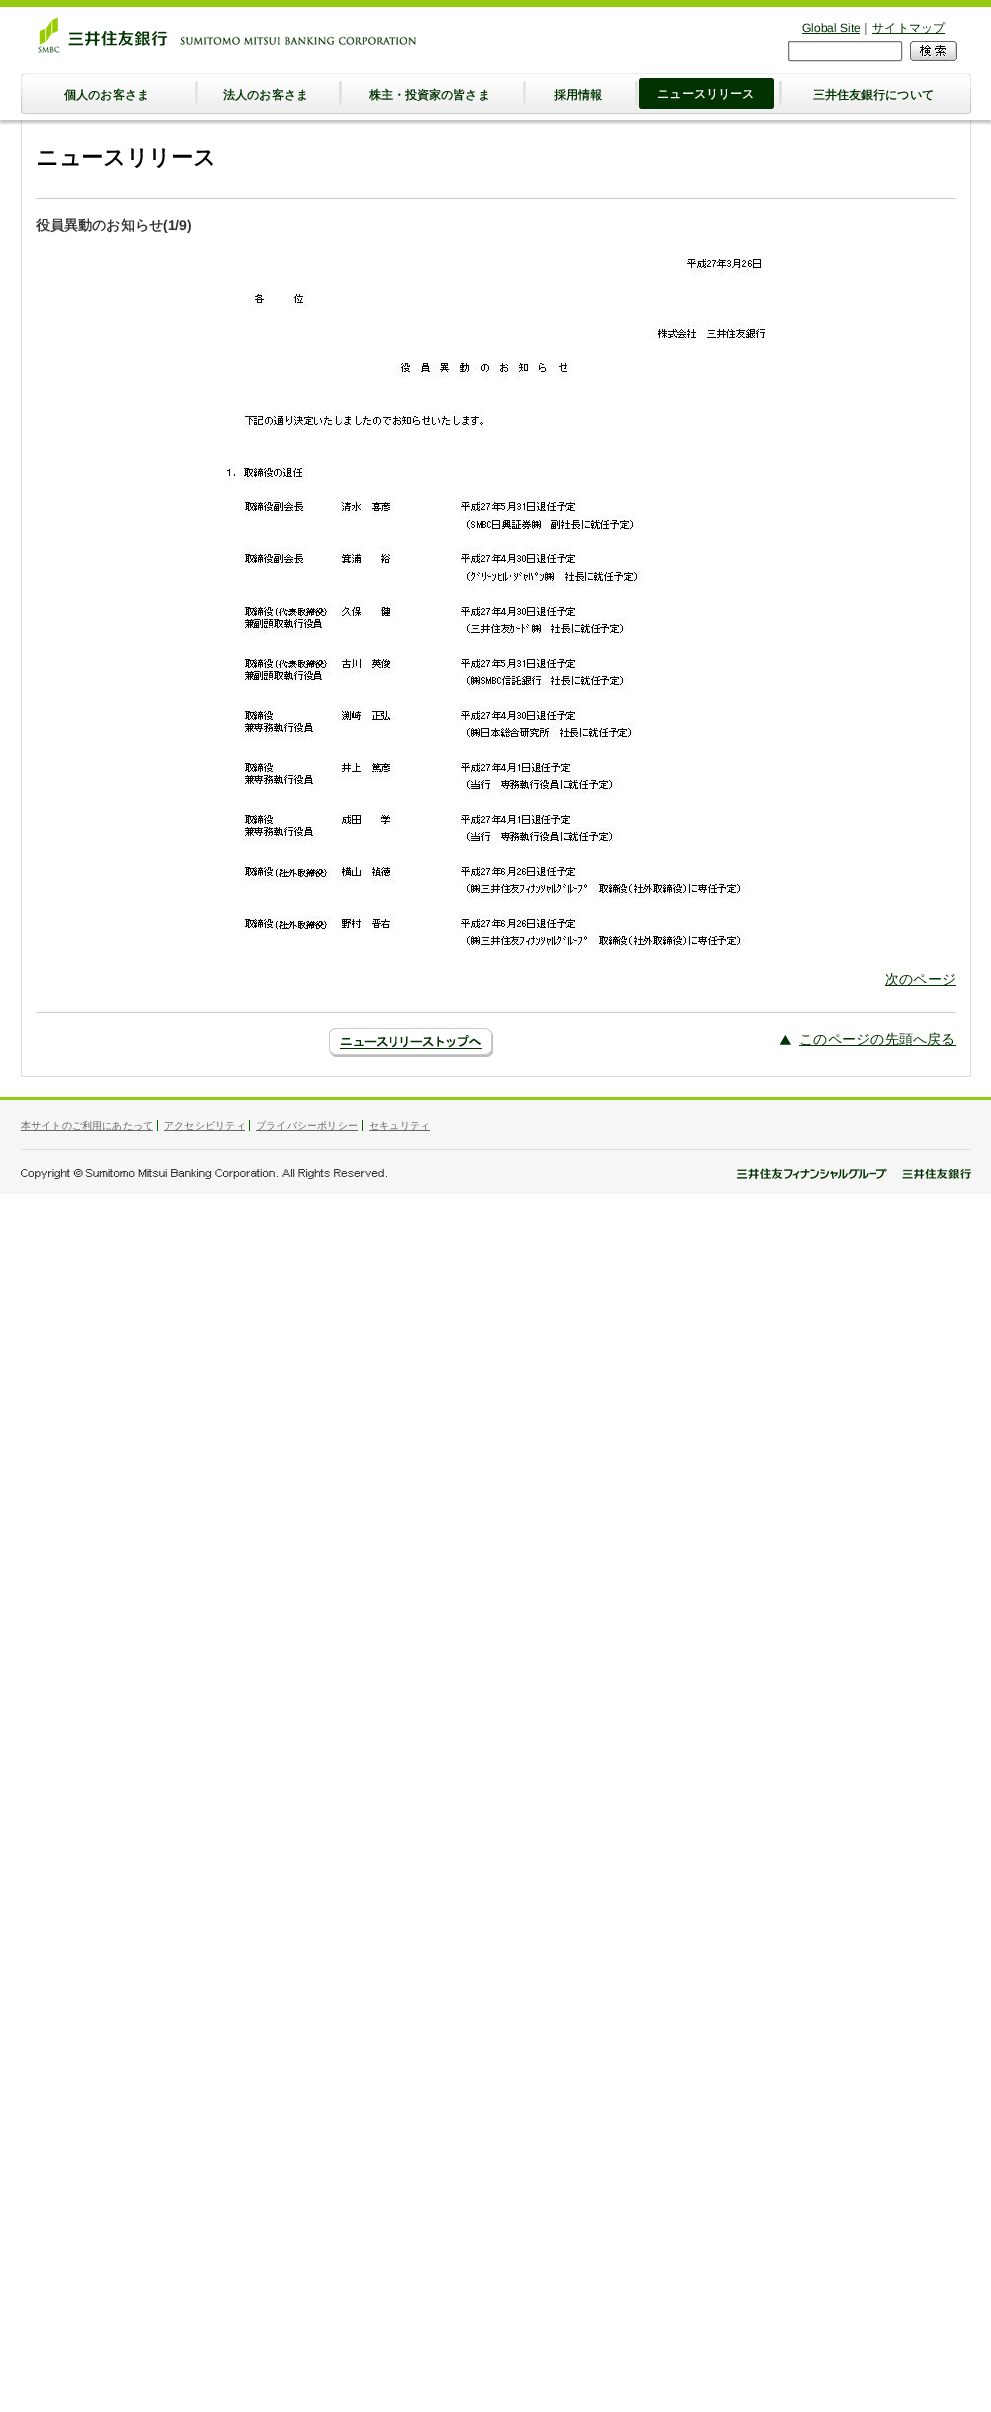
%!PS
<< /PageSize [991 2412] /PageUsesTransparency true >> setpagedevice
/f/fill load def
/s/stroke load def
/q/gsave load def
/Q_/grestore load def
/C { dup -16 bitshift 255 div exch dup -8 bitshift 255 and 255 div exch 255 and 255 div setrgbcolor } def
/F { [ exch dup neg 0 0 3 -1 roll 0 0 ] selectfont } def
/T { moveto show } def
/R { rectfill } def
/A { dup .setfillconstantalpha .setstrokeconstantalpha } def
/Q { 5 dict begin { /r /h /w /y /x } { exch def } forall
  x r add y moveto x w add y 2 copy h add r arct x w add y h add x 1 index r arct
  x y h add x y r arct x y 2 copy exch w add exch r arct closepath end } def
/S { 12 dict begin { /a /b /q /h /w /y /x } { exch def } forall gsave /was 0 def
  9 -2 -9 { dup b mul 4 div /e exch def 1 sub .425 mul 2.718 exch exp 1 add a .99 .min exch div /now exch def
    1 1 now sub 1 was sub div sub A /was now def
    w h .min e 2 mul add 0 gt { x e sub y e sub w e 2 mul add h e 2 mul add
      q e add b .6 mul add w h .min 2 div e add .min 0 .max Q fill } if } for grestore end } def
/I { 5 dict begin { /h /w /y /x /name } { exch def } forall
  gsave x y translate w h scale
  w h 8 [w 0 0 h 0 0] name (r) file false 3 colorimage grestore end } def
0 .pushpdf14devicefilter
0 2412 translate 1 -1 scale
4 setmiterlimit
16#FFFFFF C
0 0 991 2412 R
16#94CB10 C
0 0 991 7 R
16#DDDDDD C
970 120 1 957 R
21 120 1 55 R
q
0 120 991 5 rectclip
16#646464 C
0 10 991 113 0 1.5 .4 S
Q_
(1.rgb) 38 17 378 36 I
/LiberationSans-Regular 12 F
16#003300 C
(Global Site) 802 32 T
802 33 58 1 R
/WenQuanYiZenHei-Medium 12 F
16#333333 C
(｜) 860 32 T
16#003300 C
872 33 73 1 R
(サイトマップ) 872 32 T
16#767676 C
788.5 41.5 113 19 1.5 Q s
(2.rgb) 910 41 47 20 I
(3.rgb) 26 73 941 41 I
(4.rgb) 967 73 4 41 I
(5.rgb) 21 73 5 41 I
/WenQuanYiZenHei-Bold 12 F
16#003300 C
(個人のお客さま) 64 99 T
16#E5E5E5 C
195 81 3 24 R
16#003300 C
(法人のお客さま) 223 99 T
16#E2E2E2 C
339 81 3 24 R
16#003300 C
(株主・投資家の皆さま) 369 99 T
16#E5E5E5 C
523 81 3 24 R
16#003300 C
(採用情報) 554 99 T
16#E5E5E5 C
635 81 3 24 R
16#003300 C
639 78 135 31 3 Q f
16#FFFFFF C
(ニュースリリース) 657 98 T
16#E2E2E2 C
779 81 3 24 R
16#003300 C
(三井住友銀行について) 813 99 T
/WenQuanYiZenHei-Bold 22 F
16#000000 C
(ニュースリリース) 36 165 T
16#DDDDDD C
21 1076 950 1 R
21 175 1 902 R
16#CCCCCC C
36 198 920 1 R
/WenQuanYiZenHei-Bold 14 F
16#333333 C
(役員異動のお知らせ) 36 230 T
/LiberationSans-Bold 14 F
(\(1/9\)) 163 230 T
(6.rgb) 227 259 538 686 I
16#003300 C
885 985 71 1 R
/WenQuanYiZenHei-Medium 14 F
(次のページ) 885 984 T
(7.rgb) 329 1028 164 29 I
16#CCCCCC C
36 1012 920 1 R
(8.rgb) 779 1035 12 10 I
16#003300 C
799 1045 157 1 R
(このページの先頭へ戻る) 799 1044 T
16#F6F6F6 C
0 1100 991 94 R
16#94CB10 C
0 1097 991 3 R
16#DDDDDD C
21 1149 950 1 R
16#006600 C
157 1120 1 11 R
16#666666 C
21 1130 132 1 R
/WenQuanYiZenHei-Medium 10 F
(本サイトのご利用にあたって) 21 1129 T
16#006600 C
249 1120 1 11 R
16#666666 C
164 1130 81 1 R
(アクセシビリティ) 164 1129 T
16#006600 C
362 1120 1 11 R
16#666666 C
256 1130 102 1 R
(プライバシーポリシー) 256 1129 T
369 1130 61 1 R
(セキュリティ) 369 1129 T
(9.rgb) 21 1169 366 10 I
(10.rgb) 737 1168 150 11 I
(11.rgb) 902 1168 69 11 I
.poppdf14devicefilter showpage
